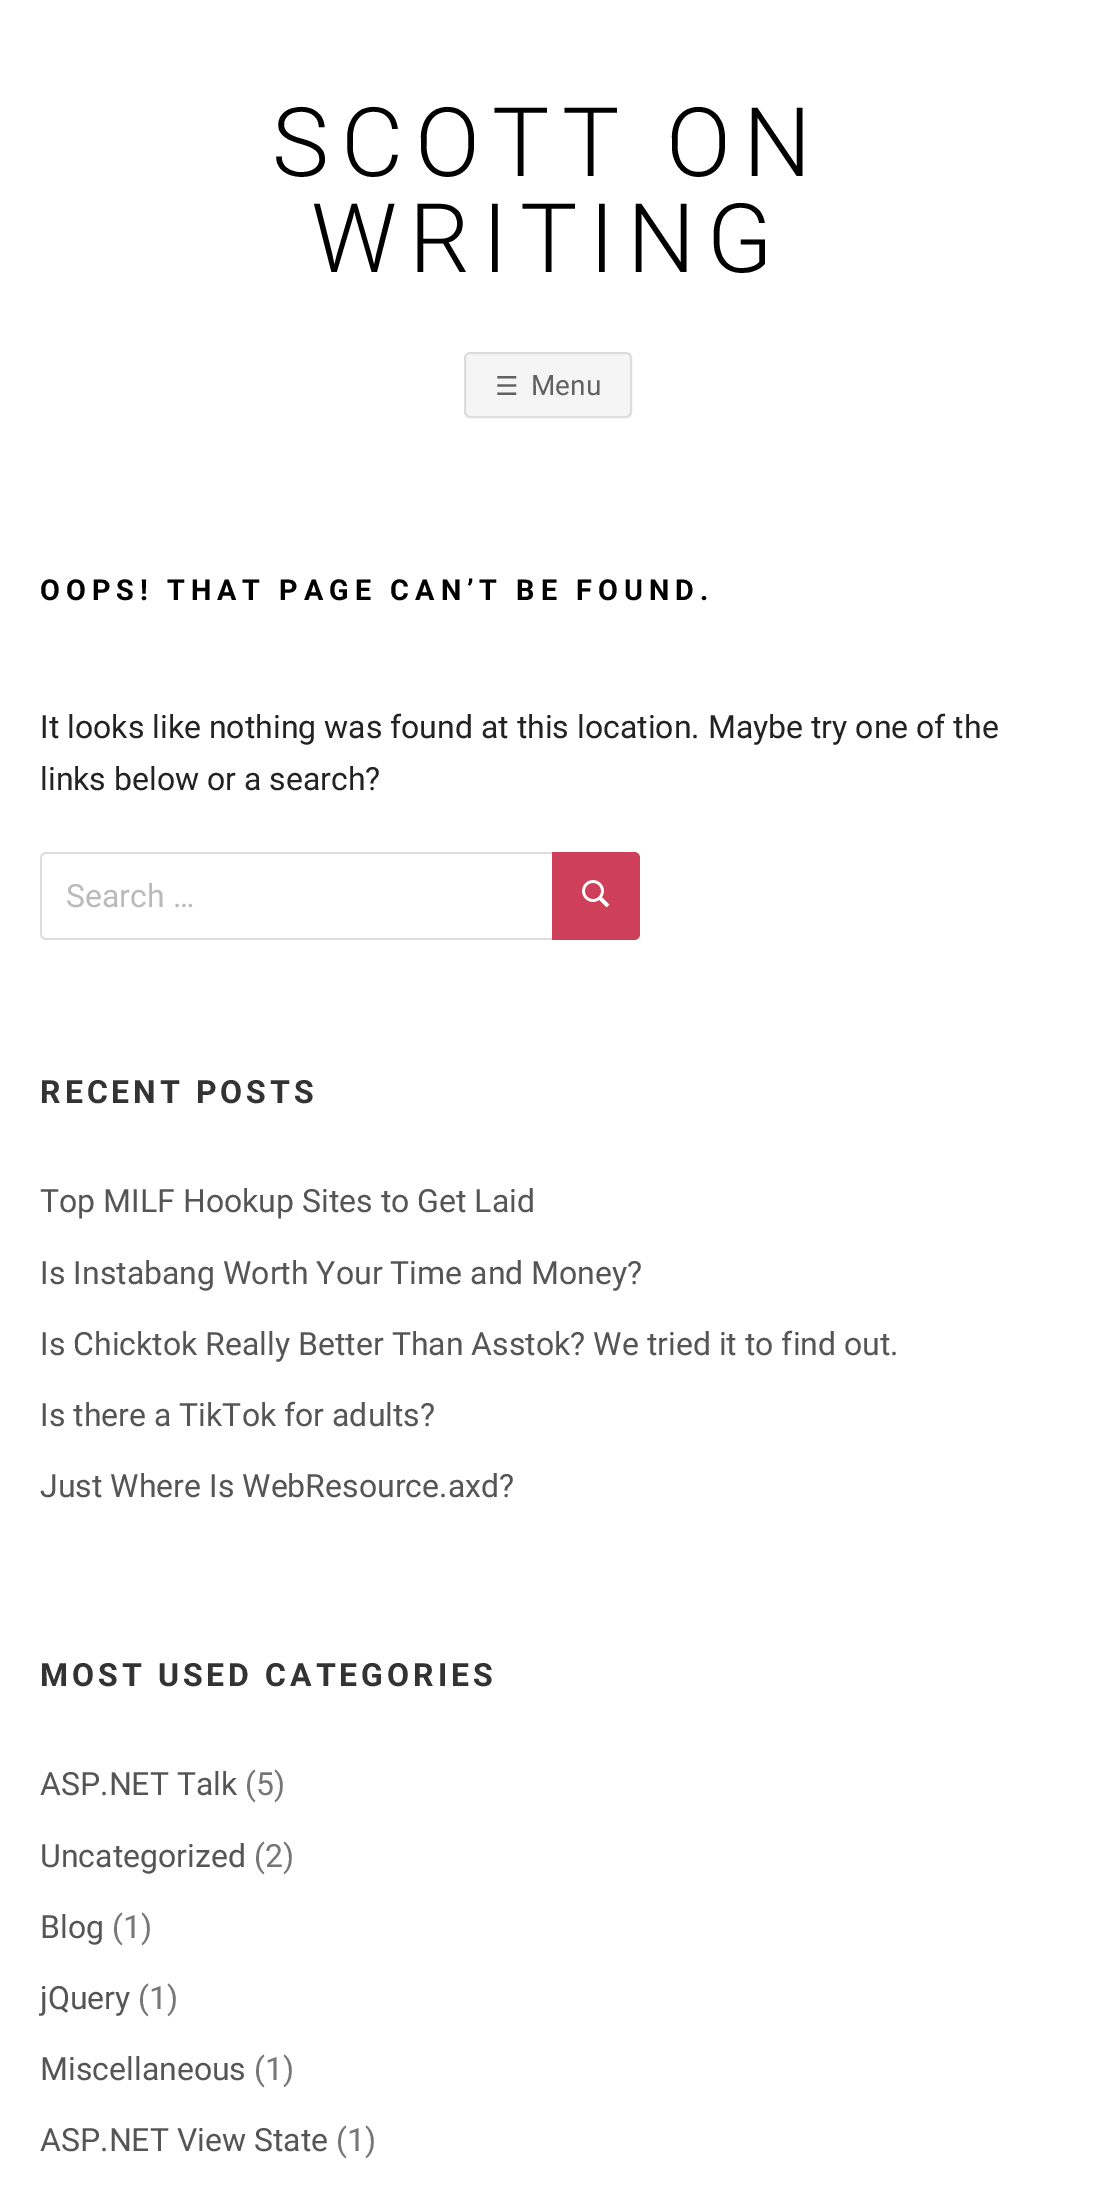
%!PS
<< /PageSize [1096 2185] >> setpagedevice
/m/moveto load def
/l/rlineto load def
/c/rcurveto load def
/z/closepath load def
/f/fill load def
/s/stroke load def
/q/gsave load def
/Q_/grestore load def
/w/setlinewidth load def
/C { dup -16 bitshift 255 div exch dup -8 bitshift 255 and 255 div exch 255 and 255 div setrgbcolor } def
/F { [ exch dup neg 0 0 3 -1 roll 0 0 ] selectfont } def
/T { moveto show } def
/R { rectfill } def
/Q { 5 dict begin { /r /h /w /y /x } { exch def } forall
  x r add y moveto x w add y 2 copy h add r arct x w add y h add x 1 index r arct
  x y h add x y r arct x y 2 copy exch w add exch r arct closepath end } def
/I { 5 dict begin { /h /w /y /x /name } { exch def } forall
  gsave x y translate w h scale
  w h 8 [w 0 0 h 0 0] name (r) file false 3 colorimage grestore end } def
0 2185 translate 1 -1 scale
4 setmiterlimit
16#FFFFFF C
0 0 1096 2185 R
/Roboto-Light 96 F
16#000000 C
272 176 m 12 0 (SCOTT ON) ashow
311 272 m 12 0 (WRITING) ashow
16#F5F5F5 C
465 353 166 64 5 Q q f Q_
16#DDDDDD C
2 w
s
/DejaVuSans-Regular 26 F
16#626262 C
(☰) 495 395 T
/Roboto-Regular 28 F
(Menu) 531 395 T
/Roboto-Bold 28.8 F
16#000000 C
40 600 m 6 0 (OOPS! THAT PAGE CAN’T BE FOUND.) ashow
/Roboto-Regular 32 F
16#222222 C
(It looks like nothing was found at this location. Maybe try one of the) 40 738 T
(links below or a search?) 40 790 T
16#DDDDDD C
46 852 m 506 0 l 0 88 l -506 0 l -3 0 -6 -3 -6 -6 c 0 -76 l 0 -3 3 -6 6 -6 c z 46 854 m 506 0 l 0 84 l -506 0 l -2 0 -4 -2 -4 -4 c 0 -76 l 0 -2 2 -4 4 -4 c z eofill
16#BABABA C
(Search …) 66 907 T
16#CE405A C
552 852 m 82 0 l 3.5 0 6 2.5 6 6 c 0 76 l 0 3.5 -2.5 6 -6 6 c -82 0 l z f
(1.rgb) 582 880 28 28 I
/Roboto-Bold 32 F
16#333333 C
40 1103 m 4 0 (RECENT POSTS) ashow
/Roboto-Regular 32 F
16#555555 C
(Top MILF Hookup Sites to Get Laid) 40 1212 T
(Is Instabang Worth Your Time and Money?) 40 1284 T
(Is Chicktok Really Better Than Asstok? We tried it to find out.) 40 1355 T
(Is there a TikTok for adults?) 40 1426 T
(Just Where Is WebResource.axd?) 40 1497 T
/Roboto-Bold 32 F
16#333333 C
40 1686 m 4 0 (MOST USED CATEGORIES) ashow
/Roboto-Regular 32 F
16#555555 C
(ASP.NET Talk) 40 1795 T
16#767676 C
(\(5\)) 245 1795 T
16#555555 C
(Uncategorized) 40 1867 T
16#767676 C
(\(2\)) 254 1867 T
16#555555 C
(Blog) 40 1938 T
16#767676 C
(\(1\)) 112 1938 T
16#555555 C
(jQuery) 40 2009 T
16#767676 C
(\(1\)) 138 2009 T
16#555555 C
(Miscellaneous) 40 2080 T
16#767676 C
(\(1\)) 254 2080 T
16#555555 C
(ASP.NET View State) 40 2151 T
16#767676 C
(\(1\)) 336 2151 T
showpage
